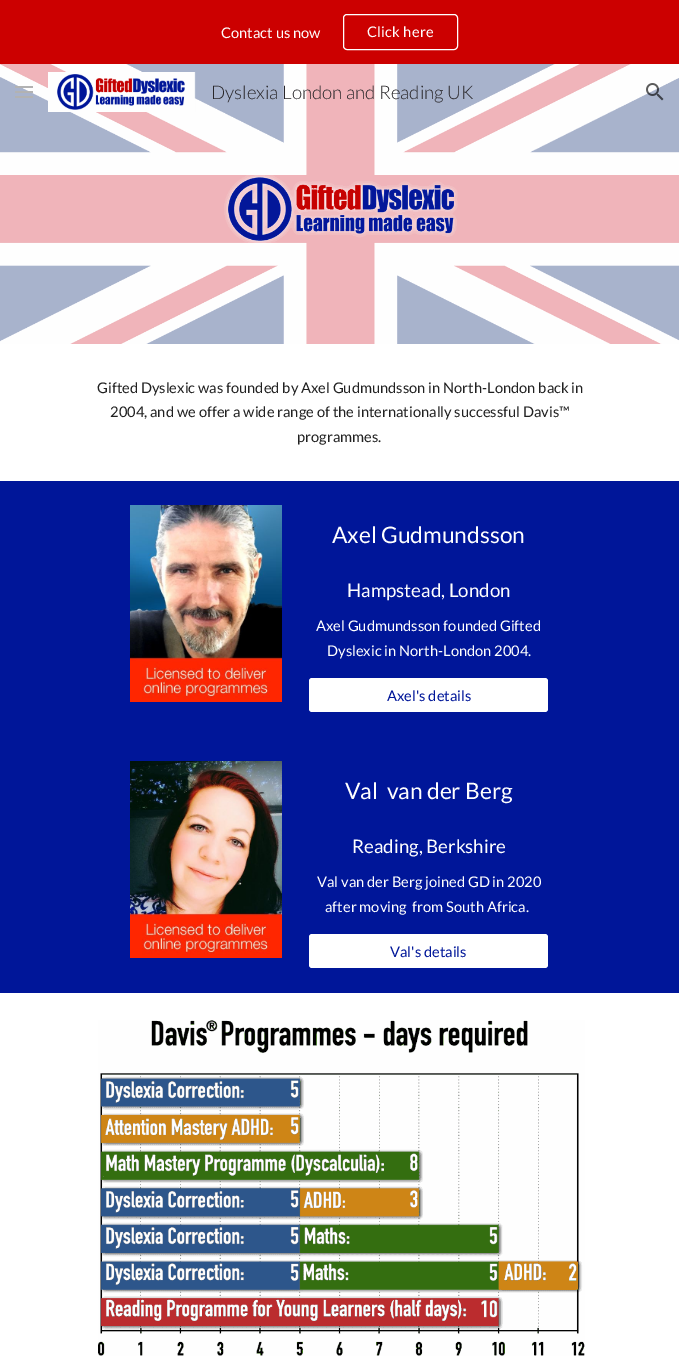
%!PS
<< /PageSize [679 1361] >> setpagedevice
/m/moveto load def
/f/fill load def
/s/stroke load def
/C { dup -16 bitshift 255 div exch dup -8 bitshift 255 and 255 div exch 255 and 255 div setrgbcolor } def
/F { [ exch dup neg 0 0 3 -1 roll 0 0 ] selectfont } def
/T { moveto show } def
/R { rectfill } def
/Q { 5 dict begin { /r /h /w /y /x } { exch def } forall
  x r add y moveto x w add y 2 copy h add r arct x w add y h add x 1 index r arct
  x y h add x y r arct x y 2 copy exch w add exch r arct closepath end } def
/I { 5 dict begin { /h /w /y /x /name } { exch def } forall
  gsave x y translate w h scale
  w h 8 [w 0 0 h 0 0] name (r) file false 3 colorimage grestore end } def
0 1361 translate 1 -1 scale
4 setmiterlimit
16#FFFFFF C
0 0 679 1361 R
16#CC0000 C
0 0 679 64 R
/Lato-Regular 14.7 F
16#FFFFFF C
(Contact us now) 221 38 T
343.5 14.5 114 35 3.5 Q s
367 37 m .25 0 (Click here) ashow
(3.rgb) 0 64 679 280 I
16#B2B2B2 C
15 86 18 2 R
15 91 18 2 R
15 96 18 2 R
(1.rgb) 48 72 148 40 I
/Lato-Light 18.7 F
16#282629 C
(Dyslexia London and Reading UK) 211 99 T
(2.rgb) 646 83 18 18 I
/Lato-Regular 14.7 F
16#212121 C
(Gifted Dyslexic was founded by Axel Gudmundsson in North-London back in) 97 393 T
(2004, and we offer a wide range of the internationally successful Davis™) 110 417 T
(programmes.) 297 442 T
16#001699 C
0 481 679 512 R
(4.rgb) 130 505 152 197 I
/Lato-Regular 22.75 F
16#FFFFFF C
(Axel Gudmundsson) 332 543 T
/Lato-Regular 18.7 F
(Hampstead, London) 347 597 T
/Lato-Regular 14.7 F
(Axel Gudmundsson founded Gifted) 316 631 T
(Dyslexic in North-London 2004.) 327 656 T
309 678 239 34 3 Q f
16#001699 C
(Axel's details) 387 701 T
(5.rgb) 130 761 152 197 I
/Lato-Regular 22.75 F
16#FFFFFF C
(Val  van der Berg) 345 799 T
/Lato-Regular 18.7 F
(Reading, Berkshire) 352 853 T
/Lato-Regular 14.7 F
(Val van der Berg joined GD in 2020) 317 887 T
(after moving  from South Africa.) 325 912 T
309 934 239 34 3 Q f
16#001699 C
(Val's details) 390 957 T
(6.rgb) 98 1020 487 336 I
showpage
